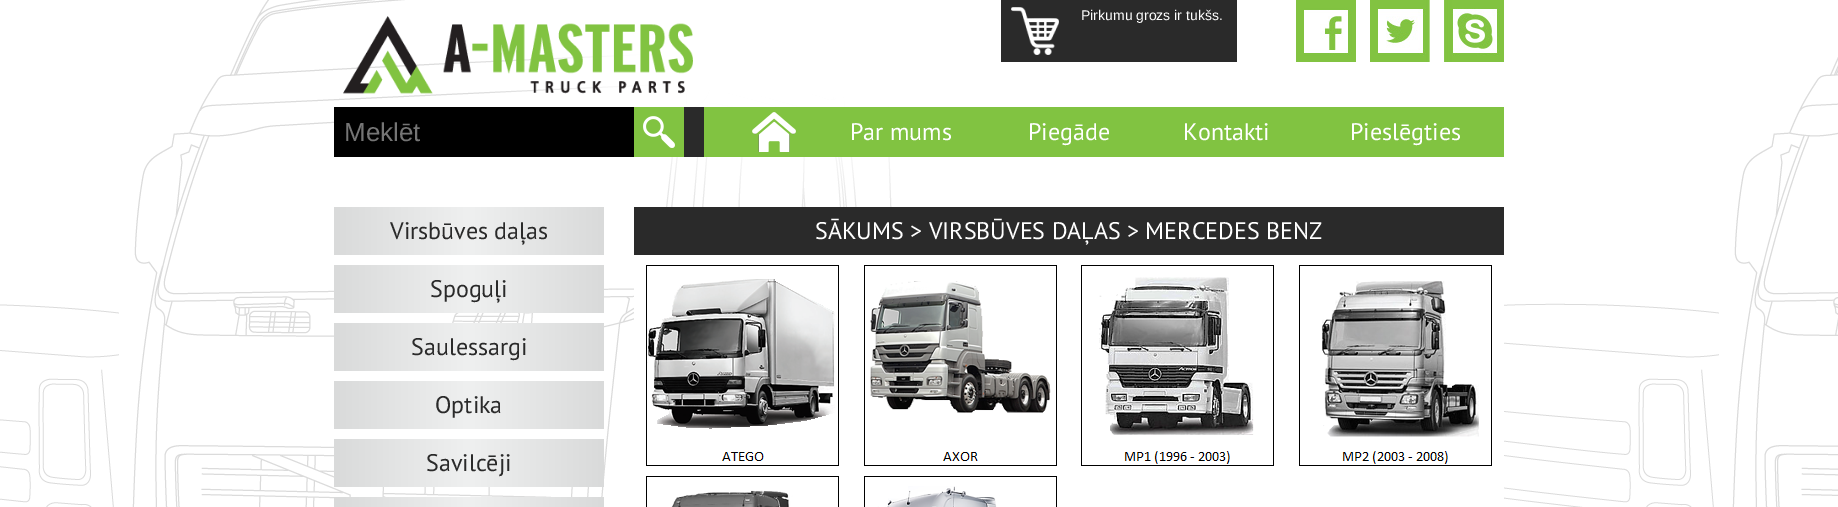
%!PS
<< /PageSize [1838 507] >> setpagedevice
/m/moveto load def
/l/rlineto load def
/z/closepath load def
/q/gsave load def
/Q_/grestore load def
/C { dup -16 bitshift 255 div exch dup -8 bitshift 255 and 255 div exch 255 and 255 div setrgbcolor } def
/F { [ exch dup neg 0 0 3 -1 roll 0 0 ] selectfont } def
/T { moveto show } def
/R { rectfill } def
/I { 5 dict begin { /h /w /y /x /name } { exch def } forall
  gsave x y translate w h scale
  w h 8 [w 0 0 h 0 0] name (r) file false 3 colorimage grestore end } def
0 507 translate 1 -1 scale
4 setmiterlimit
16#FFFFFF C
0 0 1838 507 R
(1.rgb) 0 0 1838 507 I
(2.rgb) 343 16 350 78 I
16#2A2A2A C
1001 0 236 62 R
(3.rgb) 1011 7 48 48 I
/LiberationSans-Regular 14 F
16#FFFFFF C
(Pirkumu grozs ir tukšs.) 1081 20 T
(4.rgb) 1296 0 60 62 I
(5.rgb) 1370 0 60 62 I
(6.rgb) 1444 0 60 62 I
16#81C341 C
704 107 800 50 R
16#2A2A2A C
684 107 20 50 R
16#000000 C
334 107 300 50 R
/LiberationSans-Regular 26 F
16#757575 C
(Meklēt) 344 141 T
16#81C341 C
634 107 50 50 R
(7.rgb) 643 116 32 32 I
(8.rgb) 752 112 44 40 I
/PTSans-Regular 24 F
16#FFFFFF C
(Par mums) 850 140 T
(Piegāde) 1028 140 T
(Kontakti) 1183 140 T
(Pieslēgties) 1350 140 T
q 334 207 m 270 0 l 0 48 l -270 0 l z clip newpath
<< /ShadingType 2 /ColorSpace /DeviceRGB /Coords [334 231 604 231] /Extend [true true] /Function << /FunctionType 3 /Domain [0 1] /Functions [<< /FunctionType 2 /Domain [0 1] /C0 [.851 .855 .855] /C1 [.937 .941 .941] /N 1 >> << /FunctionType 2 /Domain [0 1] /C0 [.937 .941 .941] /C1 [.851 .855 .855] /N 1 >>] /Bounds [.5] /Encode [0 1 0 1] >> >> shfill Q_
16#2A2A2A C
(Virsbūves daļas) 390 239 T
q 334 265 m 270 0 l 0 48 l -270 0 l z clip newpath
<< /ShadingType 2 /ColorSpace /DeviceRGB /Coords [334 289 604 289] /Extend [true true] /Function << /FunctionType 3 /Domain [0 1] /Functions [<< /FunctionType 2 /Domain [0 1] /C0 [.851 .855 .855] /C1 [.937 .941 .941] /N 1 >> << /FunctionType 2 /Domain [0 1] /C0 [.937 .941 .941] /C1 [.851 .855 .855] /N 1 >>] /Bounds [.5] /Encode [0 1 0 1] >> >> shfill Q_
(Spoguļi) 430 297 T
q 334 323 m 270 0 l 0 48 l -270 0 l z clip newpath
<< /ShadingType 2 /ColorSpace /DeviceRGB /Coords [334 347 604 347] /Extend [true true] /Function << /FunctionType 3 /Domain [0 1] /Functions [<< /FunctionType 2 /Domain [0 1] /C0 [.851 .855 .855] /C1 [.937 .941 .941] /N 1 >> << /FunctionType 2 /Domain [0 1] /C0 [.937 .941 .941] /C1 [.851 .855 .855] /N 1 >>] /Bounds [.5] /Encode [0 1 0 1] >> >> shfill Q_
(Saulessargi) 411 355 T
q 334 381 m 270 0 l 0 48 l -270 0 l z clip newpath
<< /ShadingType 2 /ColorSpace /DeviceRGB /Coords [334 405 604 405] /Extend [true true] /Function << /FunctionType 3 /Domain [0 1] /Functions [<< /FunctionType 2 /Domain [0 1] /C0 [.851 .855 .855] /C1 [.937 .941 .941] /N 1 >> << /FunctionType 2 /Domain [0 1] /C0 [.937 .941 .941] /C1 [.851 .855 .855] /N 1 >>] /Bounds [.5] /Encode [0 1 0 1] >> >> shfill Q_
(Optika) 435 413 T
q 334 439 m 270 0 l 0 48 l -270 0 l z clip newpath
<< /ShadingType 2 /ColorSpace /DeviceRGB /Coords [334 463 604 463] /Extend [true true] /Function << /FunctionType 3 /Domain [0 1] /Functions [<< /FunctionType 2 /Domain [0 1] /C0 [.851 .855 .855] /C1 [.937 .941 .941] /N 1 >> << /FunctionType 2 /Domain [0 1] /C0 [.937 .941 .941] /C1 [.851 .855 .855] /N 1 >>] /Bounds [.5] /Encode [0 1 0 1] >> >> shfill Q_
(Savilcēji) 426 471 T
q 334 497 m 270 0 l 0 10 l -270 0 l z clip newpath
<< /ShadingType 2 /ColorSpace /DeviceRGB /Coords [334 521 604 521] /Extend [true true] /Function << /FunctionType 3 /Domain [0 1] /Functions [<< /FunctionType 2 /Domain [0 1] /C0 [.851 .855 .855] /C1 [.937 .941 .941] /N 1 >> << /FunctionType 2 /Domain [0 1] /C0 [.937 .941 .941] /C1 [.851 .855 .855] /N 1 >>] /Bounds [.5] /Encode [0 1 0 1] >> >> shfill Q_
16#FFFFFF C
634 255 870 252 R
16#2A2A2A C
634 207 870 48 R
16#FFFFFF C
(SĀKUMS > VIRSBŪVES DAĻAS > MERCEDES BENZ) 815 239 T
(9.rgb) 646 265 193 201 I
(10.rgb) 864 265 193 201 I
(11.rgb) 1081 265 193 201 I
(12.rgb) 1299 265 193 201 I
(13.rgb) 646 476 193 31 I
(14.rgb) 864 476 193 31 I
showpage
